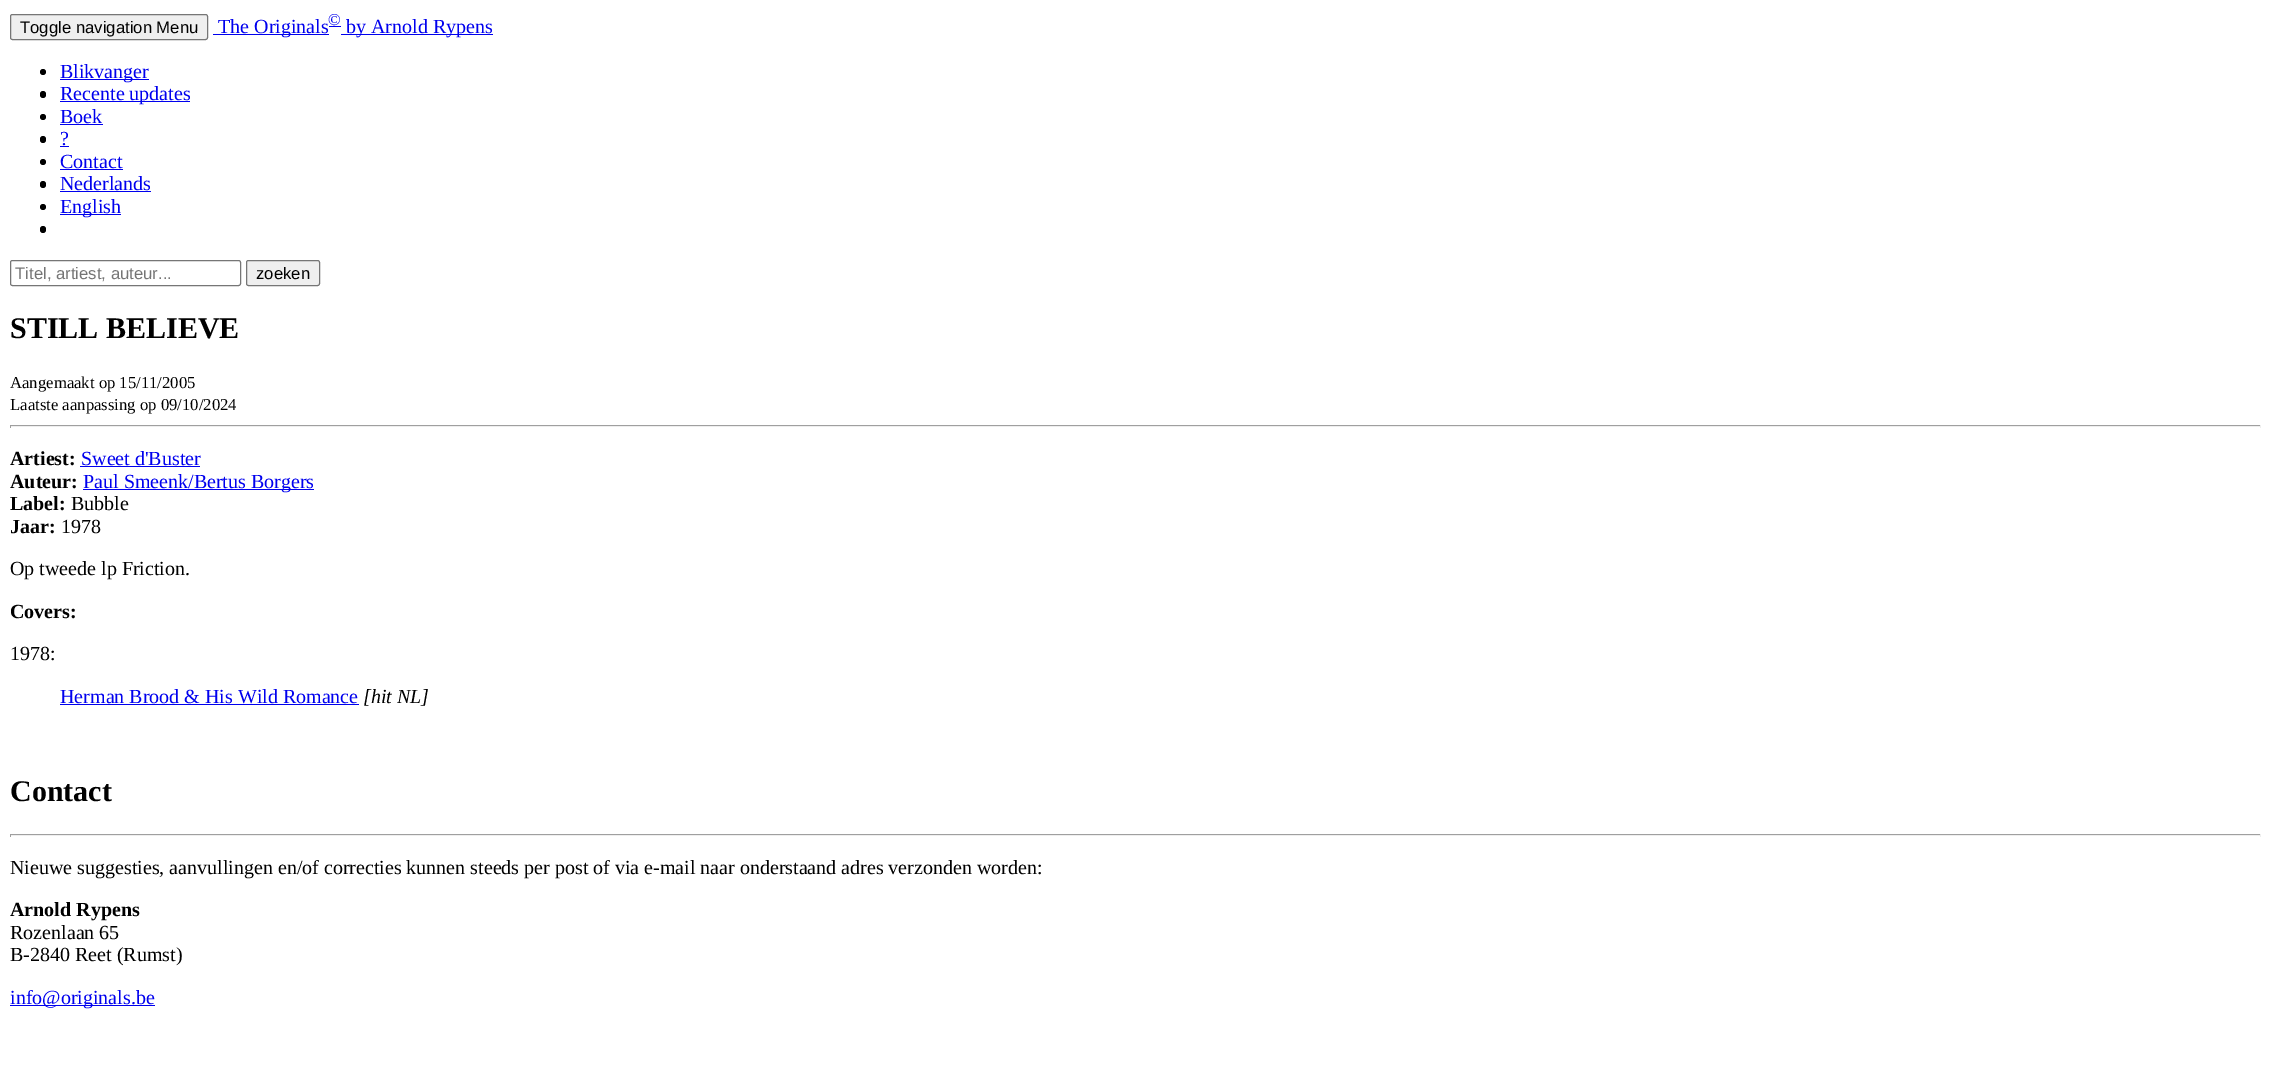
%!PS
<< /PageSize [2271 1085] >> setpagedevice
/f/fill load def
/s/stroke load def
/q/gsave load def
/Q_/grestore load def
/C { dup -16 bitshift 255 div exch dup -8 bitshift 255 and 255 div exch 255 and 255 div setrgbcolor } def
/F { [ exch dup neg 0 0 3 -1 roll 0 0 ] selectfont } def
/T { moveto show } def
/R { rectfill } def
/O { newpath 0 360 arc closepath } def
/Q { 5 dict begin { /r /h /w /y /x } { exch def } forall
  x r add y moveto x w add y 2 copy h add r arct x w add y h add x 1 index r arct
  x y h add x y r arct x y 2 copy exch w add exch r arct closepath end } def
0 1085 translate 1 -1 scale
4 setmiterlimit
16#FFFFFF C
0 0 2271 1085 R
16#EFEFEF C
10.5 14.5 197 25 2 Q q f Q_
16#767676 C
s
/LiberationSans-Regular 16.7 F
16#000000 C
(Toggle navigation Menu) 20 33 T
16#0000EE C
213 34 116 1 R
/LiberationSerif-Regular 20 F
(The Originals) 218 33 T
329 26 12 1 R
/LiberationSerif-Regular 16.7 F
(©) 328 25 T
341 34 152 1 R
/LiberationSerif-Regular 20 F
(by Arnold Rypens) 346 33 T
16#000000 C
43 72 3 O f
16#0000EE C
60 79 89 1 R
(Blikvanger) 60 78 T
16#000000 C
40 91 6 7 3 Q f
16#0000EE C
60 101 130 1 R
(Recente updates) 60 100 T
16#000000 C
43 117 3 O f
16#0000EE C
(Boek) 60 123 T
60 124 43 1 R
16#000000 C
40 136 6 7 3 Q f
16#0000EE C
(?) 60 145 T
60 146 9 1 R
16#000000 C
43 162 3 O f
16#0000EE C
(Contact) 60 168 T
60 169 63 1 R
16#000000 C
40 181 6 7 3 Q f
16#0000EE C
(Nederlands) 60 190 T
60 191 91 1 R
16#000000 C
43 207 3 O f
16#0000EE C
60 214 61 1 R
(English) 60 213 T
16#000000 C
40 226 6 7 3 Q f
16#767676 C
10.5 260.5 230 25 2 Q s
/LiberationSans-Regular 16.7 F
16#757575 C
(Titel, artiest, auteur...) 15 279 T
16#EFEFEF C
246.5 260.5 73 25 2 Q q f Q_
16#767676 C
s
16#000000 C
(zoeken) 256 279 T
/LiberationSerif-Bold 30 F
(STILL BELIEVE) 10 338 T
/LiberationSerif-Regular 16.7 F
(Aangemaakt op 15/11/2005) 10 388 T
(Laatste aanpassing op 09/10/2024) 10 410 T
16#9F9F9F C
10 425 2251 1 R
16#EEEEEE C
2260 425 1 3 R
10 426 2251 1 R
16#9F9F9F C
10 425 1 3 R
/LiberationSerif-Bold 20 F
16#000000 C
(Artiest:) 10 465 T
/LiberationSerif-Regular 20 F
16#0000EE C
(Sweet d'Buster) 81 465 T
80 466 120 1 R
/LiberationSerif-Bold 20 F
16#000000 C
(Auteur:) 10 488 T
16#0000EE C
83 489 231 1 R
/LiberationSerif-Regular 20 F
(Paul Smeenk/Bertus Borgers) 83 488 T
/LiberationSerif-Bold 20 F
16#000000 C
(Label:) 10 510 T
/LiberationSerif-Regular 20 F
(Bubble) 71 510 T
/LiberationSerif-Bold 20 F
(Jaar:) 10 533 T
/LiberationSerif-Regular 20 F
(1978) 61 533 T
(Op tweede lp Friction.) 10 575 T
/LiberationSerif-Bold 20 F
(Covers:) 10 618 T
/LiberationSerif-Regular 20 F
(1978:) 10 660 T
16#0000EE C
(Herman Brood & His Wild Romance) 60 703 T
60 704 299 1 R
/LiberationSerif-Italic 20 F
16#000000 C
([hit NL]) 363 703 T
/LiberationSerif-Bold 30 F
(Contact) 10 801 T
16#9F9F9F C
10 834 2251 1 R
16#EEEEEE C
2260 834 1 3 R
10 835 2251 1 R
16#9F9F9F C
10 834 1 3 R
/LiberationSerif-Regular 20 F
16#000000 C
(Nieuwe suggesties, aanvullingen en/of correcties kunnen steeds per post of via e-mail naar onderstaand adres verzonden worden:) 10 874 T
/LiberationSerif-Bold 20 F
(Arnold Rypens) 10 916 T
/LiberationSerif-Regular 20 F
(Rozenlaan 65) 10 939 T
(B-2840 Reet \(Rumst\)) 10 961 T
16#0000EE C
10 1005 145 1 R
(info@originals.be) 10 1004 T
showpage
